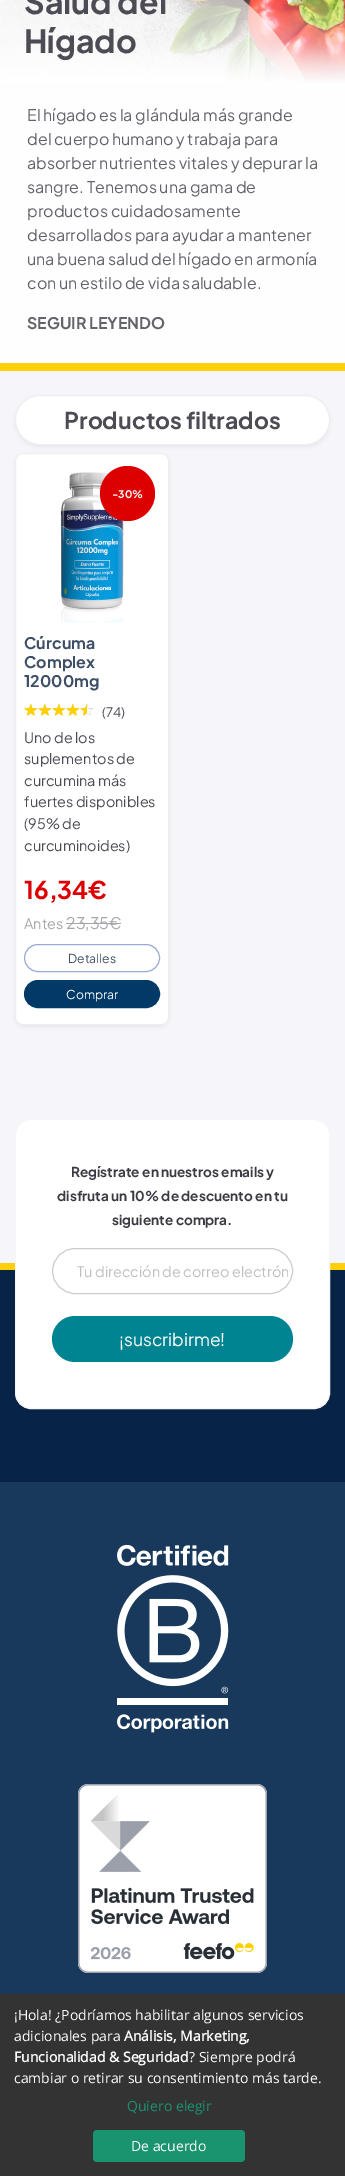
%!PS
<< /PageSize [345 2176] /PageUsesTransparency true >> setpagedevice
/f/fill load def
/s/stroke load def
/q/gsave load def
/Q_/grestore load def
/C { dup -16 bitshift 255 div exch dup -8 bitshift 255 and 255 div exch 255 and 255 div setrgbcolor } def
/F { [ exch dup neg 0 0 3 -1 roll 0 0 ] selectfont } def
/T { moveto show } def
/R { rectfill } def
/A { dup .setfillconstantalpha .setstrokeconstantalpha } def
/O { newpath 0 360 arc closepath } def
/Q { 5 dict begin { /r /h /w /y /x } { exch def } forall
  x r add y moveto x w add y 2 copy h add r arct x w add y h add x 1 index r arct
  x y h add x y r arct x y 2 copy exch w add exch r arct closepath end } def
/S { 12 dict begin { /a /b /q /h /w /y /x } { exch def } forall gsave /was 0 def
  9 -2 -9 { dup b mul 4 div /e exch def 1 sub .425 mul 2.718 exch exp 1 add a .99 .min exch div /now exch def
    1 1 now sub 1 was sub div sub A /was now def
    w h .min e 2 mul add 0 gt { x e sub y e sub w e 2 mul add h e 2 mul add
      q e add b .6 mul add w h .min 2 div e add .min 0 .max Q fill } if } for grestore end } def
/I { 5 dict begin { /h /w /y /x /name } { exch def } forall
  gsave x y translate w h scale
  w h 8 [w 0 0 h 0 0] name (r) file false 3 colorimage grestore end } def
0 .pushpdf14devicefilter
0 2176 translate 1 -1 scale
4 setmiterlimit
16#F6F5FA C
0 0 345 2176 R
(1.rgb) 0 0 345 83 I
/PlusJakartaSans-Bold 32 F
16#4C4C54 C
(Salud del) 24 14 T
(Hígado) 24 53 T
16#FEFEFE C
0 83 345 280 R
/PlusJakartaSans-Regular 16 F
16#64646C C
(El hígado es la glándula más grande) 27 121 T
(del cuerpo humano y trabaja para) 27 145 T
(absorber nutrientes vitales y depurar la) 27 169 T
(sangre. Tenemos una gama de) 27 193 T
(productos cuidadosamente) 27 217 T
(desarrollados para ayudar a mantener) 27 241 T
(una buena salud del hígado en armonía) 27 265 T
(con un estilo de vida saludable.) 27 289 T
/PlusJakartaSans-Bold 16 F
(SEGUIR LEYENDO) 27 329 T
16#FFD00A C
0 363 345 8 R
16#000000 C
15 397 315 50 25 2 .06 S
16#FFFFFF C
15.5 395.5 314 49 24.5 Q q f Q_
16#EEEEEE C
s
/PlusJakartaSans-Bold 23 F
16#4C4C54 C
(Productos filtrados) 64 429 T
16#000000 C
15 455 154 572 8 2 .06 S
16#FFFFFF C
15.5 453.5 153 571 7.5 Q q f Q_
16#EEEEEE C
s
(2.rgb) 60 472 65 151 I
16#DD0000 C
127.5 493.5 27.5 O f
/PlusJakartaSans-Bold 10.5 F
16#FFFFFF C
(-30%) 112 498 T
/PlusJakartaSans-Bold 16 F
16#3C4F67 C
(Cúrcuma) 24 649 T
(Complex) 24 668 T
(12000mg) 24 687 T
(3.rgb) 24 704 69 12 I
(4.rgb) 24 704 63 12 I
/PlusJakartaSans-Regular 13 F
16#4C4C54 C
(\(74\)) 102 717 T
/PlusJakartaSans-Regular 14.4 F
(Uno de los) 24 743 T
(suplementos de) 24 764 T
(curcumina más) 24 786 T
(fuertes disponibles) 24 807 T
(\(95% de) 24 829 T
(curcuminoides\)) 24 851 T
/PlusJakartaSans-Bold 24.5 F
16#DD0000 C
(16,34€) 24 899 T
/PlusJakartaSans-Regular 14.4 F
16#A6A6AA C
(Antes) 24 929 T
/PlusJakartaSans-Regular 16 F
(23,35€) 66 929 T
66 923 55 1 R
16#9BAAD5 C
24.5 944.5 135 27 13.5 Q s
/PlusJakartaSans-Regular 12.25 F
16#3C4F67 C
(Detalles) 68 963 T
16#013A67 C
24.5 980.5 135 27 13.5 Q q f Q_
s
16#FFFFFF C
(Comprar) 66 999 T
16#072446 C
0 1270 345 212 R
16#FFD00A C
0 1263 345 7 R
16#FFFFFF C
15.5 1119.5 314 289 15.5 Q q f Q_
16#F6F5FA C
s
/PlusJakartaSans-Bold 13.6 F
16#3A3A43 C
(Regístrate en nuestros emails y) 71 1177 T
(disfruta un 10% de descuento en tu) 57 1201 T
(siguiente compra.) 112 1225 T
16#CCCCCC C
52.5 1248.5 240 45 22.5 Q s
q
77 1262 211 18 rectclip
/PlusJakartaSans-Regular 14.4 F
16#BFBFBF C
(Tu dirección de correo electrón) 77 1277 T
Q_
16#008492 C
52 1316 241 46 23 Q f
/PlusJakartaSans-Regular 17.5 F
16#FFFFFF C
(¡suscribirme!) 119 1346 T
16#18395B C
0 1482 345 512 R
(5.rgb) 117 1544 112 189 I
(6.rgb) 78 1784 189 189 I
16#333333 C
0 1994 345 182 R
/OpenSans-Regular 14 F
16#FFFFFF C
(¡Hola! ¿Podríamos habilitar algunos servicios) 14 2020 T
(adicionales para) 14 2041 T
/OpenSans-Bold 14 F
(Análisis, Marketing,) 124 2041 T
(Funcionalidad & Seguridad) 14 2062 T
/OpenSans-Regular 14 F
(? Siempre podrá) 189 2062 T
(cambiar o retirar su consentimiento más tarde.) 14 2083 T
16#1A936F C
(Quiero elegir) 127 2111 T
93 2130 152 32 4 Q f
16#FFFFFF C
(De acuerdo) 131 2151 T
.poppdf14devicefilter showpage
